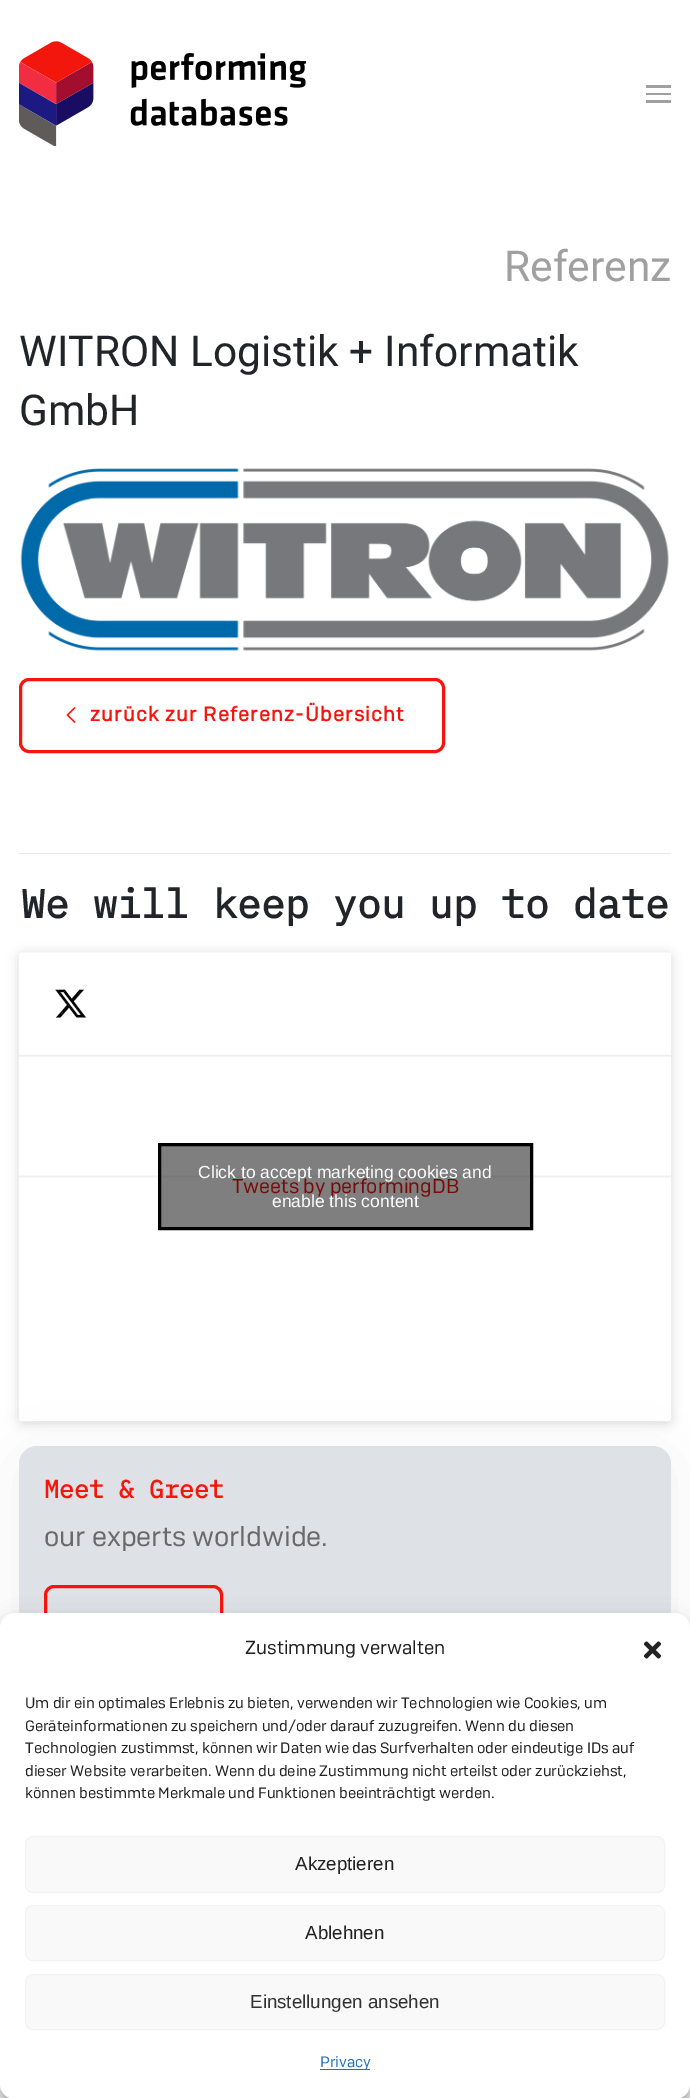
%!PS
<< /PageSize [690 2098] /PageUsesTransparency true >> setpagedevice
/m/moveto load def
/l/rlineto load def
/z/closepath load def
/f/fill load def
/s/stroke load def
/q/gsave load def
/Q_/grestore load def
/w/setlinewidth load def
/C { dup -16 bitshift 255 div exch dup -8 bitshift 255 and 255 div exch 255 and 255 div setrgbcolor } def
/F { [ exch dup neg 0 0 3 -1 roll 0 0 ] selectfont } def
/T { moveto show } def
/R { rectfill } def
/A { dup .setfillconstantalpha .setstrokeconstantalpha } def
/Q { 5 dict begin { /r /h /w /y /x } { exch def } forall
  x r add y moveto x w add y 2 copy h add r arct x w add y h add x 1 index r arct
  x y h add x y r arct x y 2 copy exch w add exch r arct closepath end } def
/S { 12 dict begin { /a /b /q /h /w /y /x } { exch def } forall gsave /was 0 def
  9 -2 -9 { dup b mul 4 div /e exch def 1 sub .425 mul 2.718 exch exp 1 add a .99 .min exch div /now exch def
    1 1 now sub 1 was sub div sub A /was now def
    w h .min e 2 mul add 0 gt { x e sub y e sub w e 2 mul add h e 2 mul add
      q e add b .6 mul add w h .min 2 div e add .min 0 .max Q fill } if } for grestore end } def
/I { 5 dict begin { /h /w /y /x /name } { exch def } forall
  gsave x y translate w h scale
  w h 8 [w 0 0 h 0 0] name (r) file false 3 colorimage grestore end } def
0 .pushpdf14devicefilter
0 2098 translate 1 -1 scale
4 setmiterlimit
16#FFFFFF C
0 0 690 2098 R
(1.rgb) 19 41 287 105 I
16#A0A0A0 C
646 85 25 3 R
646 93 25 2 R
646 100 25 3 R
/Roboto-Regular 42.5 F
(Referenz) 504 281 T
16#212529 C
(WITRON Logistik + Informatik) 19 366 T
(GmbH) 19 425 T
(2.rgb) 20 468 649 183 I
16#F6150C C
3 w
20.5 679.5 423 72 8.5 Q s
1.3 w
75 722.5 m -7.5 -7.5 l 7.5 -7.5 l s
/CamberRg-Bold 20 F
90 721 m 1.25 0 (zurück zur Referenz-Übersicht) ashow
16#E9E9E9 C
19 853 652 1 R
/IBMPlexMono-Bold 40 F
16#212529 C
(We will keep you up to date) 21 918 T
16#000000 C
19 954 652 469 4 6 .15 S
19 953 652 468 4 .5 .5 S
(3.rgb) 18 952 654 470 I
/CamberRg-Regular 20 F
16#F6150C C
(Tweets by performingDB) 232 1193 T
0.5 A
16#000000 C
159.5 1144.5 m 372 0 l 0 84 l -372 0 l z f
1 A
3 w
159.5 1144.5 m 372 0 l 0 84 l -372 0 l z s
/LiberationSans-Regular 17.5 F
16#FFFFFF C
(Click to accept marketing cookies and) 198 1178 T
(enable this content) 272 1207 T
16#000000 C
19 1454 652 239 18 31 .05 S
16#DEE2E6 C
19 1446 652 239 18 Q f
/IBMPlexMono-Bold 25 F
16#F6150C C
(Meet & Greet) 44 1498 T
/CamberRg-Regular 27.5 F
16#696969 C
(our experts worldwide.) 44 1546 T
16#F6150C C
45.5 1586.5 176 72 8.5 Q s
16#000000 C
0 1620 690 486 15 4 .23 S
0 1625 690 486 15 12.5 .19 S
16#FFFFFF C
0 1613 690 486 15 Q f
/CamberRg-Regular 18.75 F
16#222222 C
(Zustimmung verwalten) 245 1654 T
(4.rgb) 643 1641 19 18 I
/CamberRg-Regular 15 F
(Um dir ein optimales Erlebnis zu bieten, verwenden wir Technologien wie Cookies, um) 25 1708 T
(Geräteinformationen zu speichern und/oder darauf zuzugreifen. Wenn du diesen) 25 1731 T
(Technologien zustimmst, können wir Daten wie das Surfverhalten oder eindeutige IDs auf) 25 1753 T
(dieser Website verarbeiten. Wenn du deine Zustimmung nicht erteilst oder zurückziehst,) 25 1776 T
(können bestimmte Merkmale und Funktionen beeinträchtigt werden.) 25 1798 T
16#F9F9F9 C
25.5 1836.5 639 56 7.5 Q q f Q_
16#F2F2F2 C
1 w
s
/LiberationSans-Regular 18.75 F
16#222222 C
(Akzeptieren) 295 1870 T
16#F9F9F9 C
25.5 1905.5 639 55 7.5 Q q f Q_
16#F2F2F2 C
s
16#222222 C
(Ablehnen) 305 1939 T
16#F9F9F9 C
25.5 1974.5 639 55 7.5 Q q f Q_
16#F2F2F2 C
s
16#333333 C
(Einstellungen ansehen) 250 2008 T
16#1E73BE C
320 2069 50 1 R
/CamberRg-Regular 15 F
(Privacy) 320 2067 T
.poppdf14devicefilter showpage
